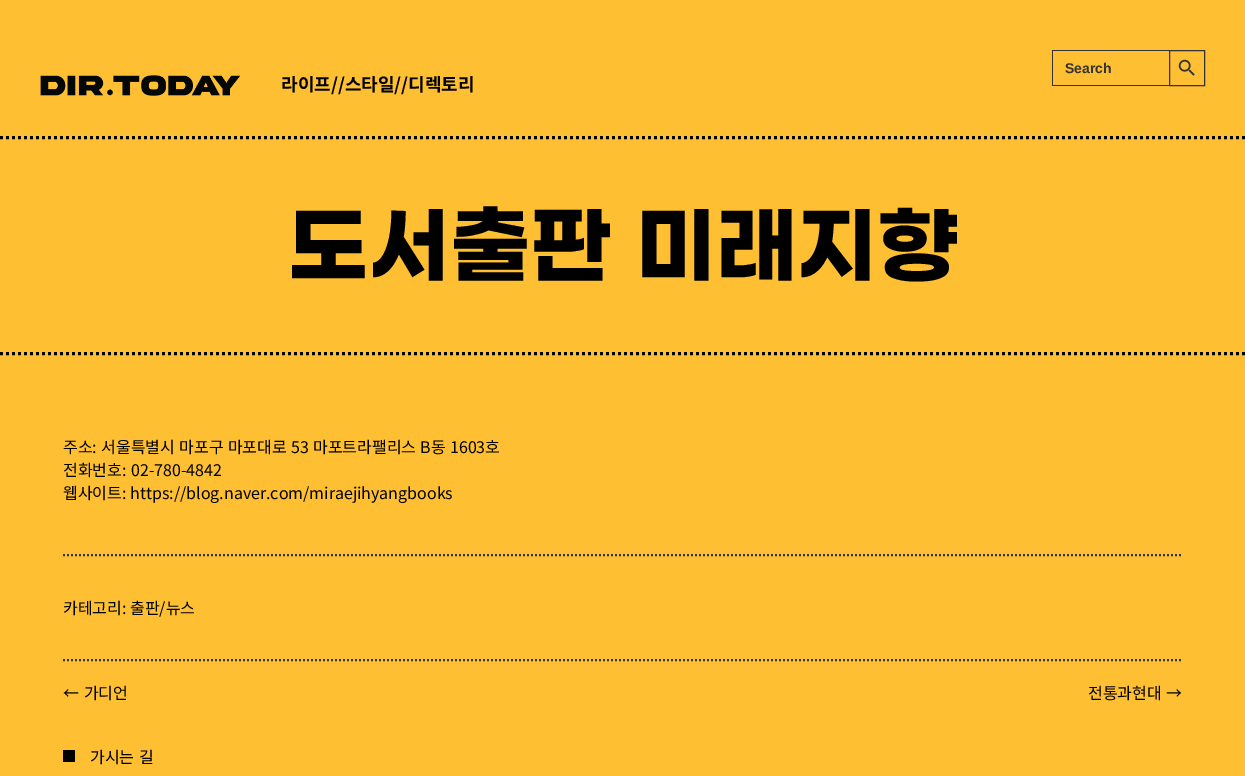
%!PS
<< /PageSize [1245 776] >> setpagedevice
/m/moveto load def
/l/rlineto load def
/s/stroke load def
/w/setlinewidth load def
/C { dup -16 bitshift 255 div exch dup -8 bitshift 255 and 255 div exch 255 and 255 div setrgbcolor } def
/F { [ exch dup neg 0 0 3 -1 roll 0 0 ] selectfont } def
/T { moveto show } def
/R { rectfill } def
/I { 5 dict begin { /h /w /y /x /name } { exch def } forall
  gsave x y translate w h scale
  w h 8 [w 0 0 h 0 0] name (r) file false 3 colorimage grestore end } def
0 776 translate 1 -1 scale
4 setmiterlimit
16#FEBF32 C
0 0 1245 776 R
16#333333 C
1052 50 117 1 R
1052 85 117 1 R
1052 50 1 36 R
/LiberationSans-Bold 14 F
(Search) 1065 73 T
1169.5 50.5 35 35 rectstroke
(1.rgb) 1178 59 17 17 I
(2.rgb) 40 75 201 21 I
/NotoSansKR-Bold 18 F
16#000000 C
(라이프//스타일//디렉토리) 281 91 T
3 w
[3 3] 0 setdash
0 137.5 m 1245 0 l s
0 353.5 m 1245 0 l s
/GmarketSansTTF-Bold 84 F
(도서출판 미래지향) 288 272 T
/NotoSansKR-Regular 16 F
63 453 m .75 0 32 (주소: 서울특별시 마포구 마포대로 53 마포트라팰리스 B동 1603호) widthshow
63 476 m 1 0 32 (전화번호: 02-780-4842) widthshow
(웹사이트:) 63 499 T
(https://blog.naver.com/miraejihyangbooks) 130 499 T
16#333333 C
2 w
[2 2] 0 setdash
63 555 m 1120 0 l s
16#000000 C
(카테고리:) 63 614 T
(출판/뉴스) 130 614 T
16#333333 C
63 660 m 1120 0 l s
16#000000 C
63 699 m 1 0 32 (← 가디언) widthshow
1088 699 m 1 0 32 (전통과현대 →) widthshow
63 750 12 12 R
90 763 m 1 0 32 (가시는 길) widthshow
showpage
